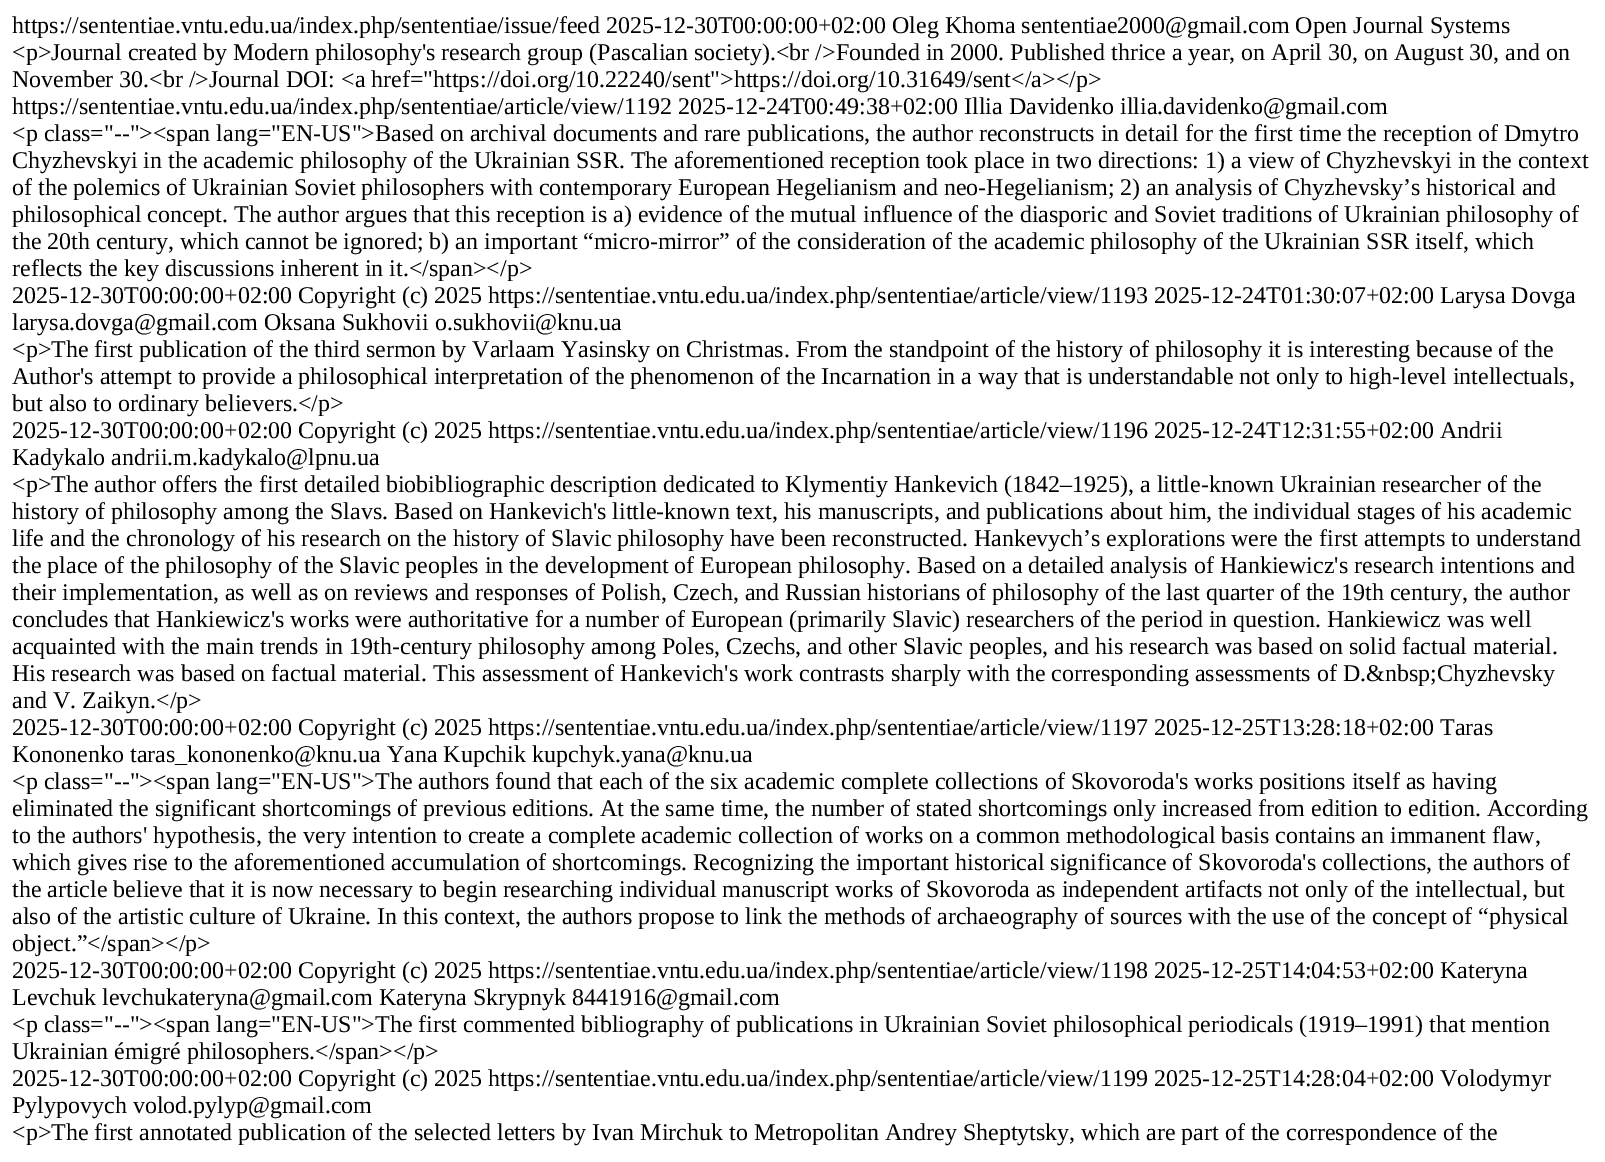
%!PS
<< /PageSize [1605 1162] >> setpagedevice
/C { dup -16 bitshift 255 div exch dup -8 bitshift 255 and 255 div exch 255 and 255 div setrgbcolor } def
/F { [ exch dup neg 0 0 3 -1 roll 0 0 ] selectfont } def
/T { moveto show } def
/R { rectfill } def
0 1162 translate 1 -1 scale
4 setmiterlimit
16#FFFFFF C
0 0 1605 1162 R
/LiberationSerif-Regular 24 F
16#000000 C
(https://sententiae.vntu.edu.ua/index.php/sententiae/issue/feed 2025-12-30T00:00:00+02:00 Oleg Khoma sententiae2000@gmail.com Open Journal Systems) 12 33 T
(<p>Journal created by Modern philosophy's research group \(Pascalian society\).<br />Founded in 2000. Published thrice a year, on April 30, on August 30, and on) 12 60 T
(November 30.<br />Journal DOI: <a href="https://doi.org/10.22240/sent">https://doi.org/10.31649/sent</a></p>) 12 87 T
(https://sententiae.vntu.edu.ua/index.php/sententiae/article/view/1192 2025-12-24T00:49:38+02:00 Illia Davidenko illia.davidenko@gmail.com) 12 114 T
(<p class="--"><span lang="EN-US">Based on archival documents and rare publications, the author reconstructs in detail for the first time the reception of Dmytro) 12 141 T
(Chyzhevskyi in the academic philosophy of the Ukrainian SSR. The aforementioned reception took place in two directions: 1\) a view of Chyzhevskyi in the context) 12 168 T
(of the polemics of Ukrainian Soviet philosophers with contemporary European Hegelianism and neo-Hegelianism; 2\) an analysis of Chyzhevsky’s historical and) 12 195 T
(philosophical concept. The author argues that this reception is a\) evidence of the mutual influence of the diasporic and Soviet traditions of Ukrainian philosophy of) 12 222 T
(the 20th century, which cannot be ignored; b\) an important “micro-mirror” of the consideration of the academic philosophy of the Ukrainian SSR itself, which) 12 249 T
(reflects the key discussions inherent in it.</span></p>) 12 276 T
(2025-12-30T00:00:00+02:00 Copyright \(c\) 2025 https://sententiae.vntu.edu.ua/index.php/sententiae/article/view/1193 2025-12-24T01:30:07+02:00 Larysa Dovga) 12 303 T
(larysa.dovga@gmail.com Oksana Sukhovii o.sukhovii@knu.ua) 12 330 T
(<p>The first publication of the third sermon by Varlaam Yasinsky on Christmas. From the standpoint of the history of philosophy it is interesting because of the) 12 357 T
(Author's attempt to provide a philosophical interpretation of the phenomenon of the Incarnation in a way that is understandable not only to high-level intellectuals,) 12 384 T
(but also to ordinary believers.</p>) 12 411 T
(2025-12-30T00:00:00+02:00 Copyright \(c\) 2025 https://sententiae.vntu.edu.ua/index.php/sententiae/article/view/1196 2025-12-24T12:31:55+02:00 Andrii) 12 438 T
(Kadykalo andrii.m.kadykalo@lpnu.ua) 12 465 T
(<p>The author offers the first detailed biobibliographic description dedicated to Klymentiy Hankevich \(1842–1925\), a little-known Ukrainian researcher of the) 12 492 T
(history of philosophy among the Slavs. Based on Hankevich's little-known text, his manuscripts, and publications about him, the individual stages of his academic) 12 519 T
(life and the chronology of his research on the history of Slavic philosophy have been reconstructed. Hankevych’s explorations were the first attempts to understand) 12 546 T
(the place of the philosophy of the Slavic peoples in the development of European philosophy. Based on a detailed analysis of Hankiewicz's research intentions and) 12 573 T
(their implementation, as well as on reviews and responses of Polish, Czech, and Russian historians of philosophy of the last quarter of the 19th century, the author) 12 600 T
(concludes that Hankiewicz's works were authoritative for a number of European \(primarily Slavic\) researchers of the period in question. Hankiewicz was well) 12 627 T
(acquainted with the main trends in 19th-century philosophy among Poles, Czechs, and other Slavic peoples, and his research was based on solid factual material.) 12 654 T
(His research was based on factual material. This assessment of Hankevich's work contrasts sharply with the corresponding assessments of D.&nbsp;Chyzhevsky) 12 681 T
(and V. Zaikyn.</p>) 12 708 T
(2025-12-30T00:00:00+02:00 Copyright \(c\) 2025 https://sententiae.vntu.edu.ua/index.php/sententiae/article/view/1197 2025-12-25T13:28:18+02:00 Taras) 12 735 T
(Kononenko taras_kononenko@knu.ua Yana Kupchik kupchyk.yana@knu.ua) 12 762 T
(<p class="--"><span lang="EN-US">The authors found that each of the six academic complete collections of Skovoroda's works positions itself as having) 12 789 T
(eliminated the significant shortcomings of previous editions. At the same time, the number of stated shortcomings only increased from edition to edition. According) 12 816 T
(to the authors' hypothesis, the very intention to create a complete academic collection of works on a common methodological basis contains an immanent flaw,) 12 843 T
(which gives rise to the aforementioned accumulation of shortcomings. Recognizing the important historical significance of Skovoroda's collections, the authors of) 12 870 T
(the article believe that it is now necessary to begin researching individual manuscript works of Skovoroda as independent artifacts not only of the intellectual, but) 12 897 T
(also of the artistic culture of Ukraine. In this context, the authors propose to link the methods of archaeography of sources with the use of the concept of “physical) 12 924 T
(object.ˮ</span></p>) 12 951 T
(2025-12-30T00:00:00+02:00 Copyright \(c\) 2025 https://sententiae.vntu.edu.ua/index.php/sententiae/article/view/1198 2025-12-25T14:04:53+02:00 Kateryna) 12 978 T
(Levchuk levchukateryna@gmail.com Kateryna Skrypnyk 8441916@gmail.com) 12 1005 T
(<p class="--"><span lang="EN-US">The first commented bibliography of publications in Ukrainian Soviet philosophical periodicals \(1919–1991\) that mention) 12 1032 T
(Ukrainian émigré philosophers.</span></p>) 12 1059 T
(2025-12-30T00:00:00+02:00 Copyright \(c\) 2025 https://sententiae.vntu.edu.ua/index.php/sententiae/article/view/1199 2025-12-25T14:28:04+02:00 Volodymyr) 12 1086 T
(Pylypovych volod.pylyp@gmail.com) 12 1113 T
(<p>The first annotated publication of the selected letters by Ivan Mirchuk to Metropolitan Andrey Sheptytsky, which are part of the correspondence of the) 12 1140 T
showpage
